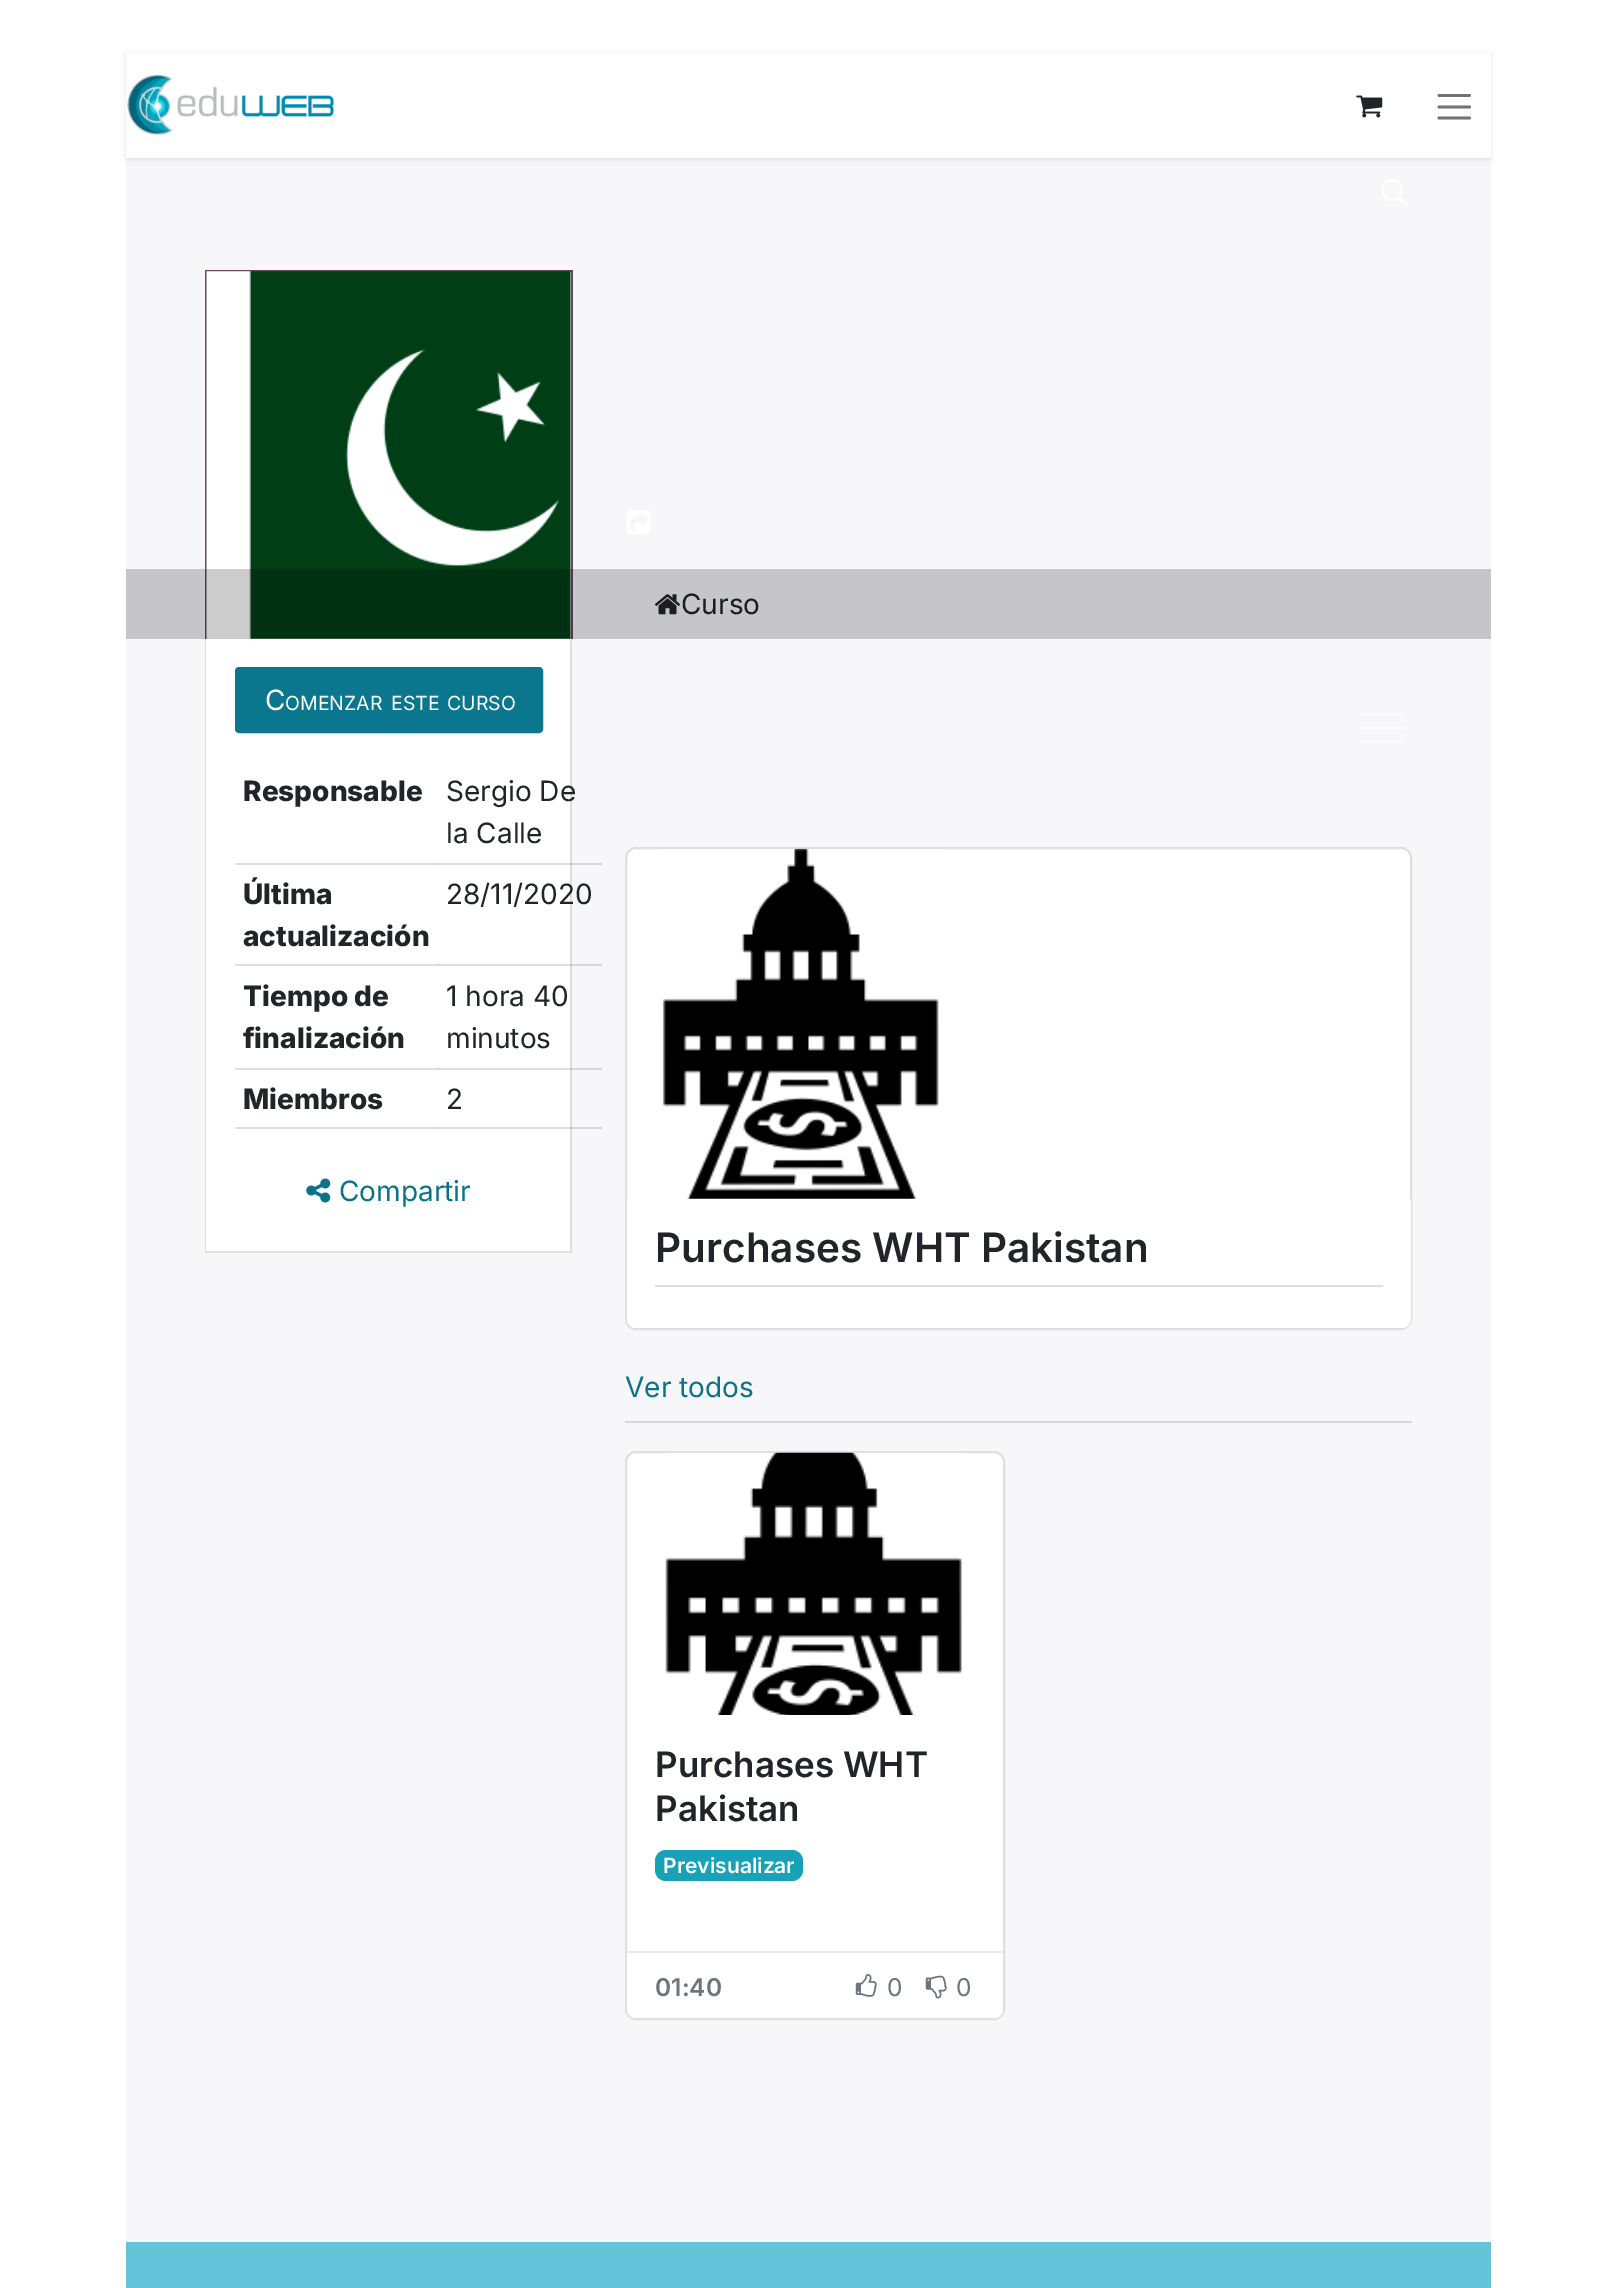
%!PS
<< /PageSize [1617 2288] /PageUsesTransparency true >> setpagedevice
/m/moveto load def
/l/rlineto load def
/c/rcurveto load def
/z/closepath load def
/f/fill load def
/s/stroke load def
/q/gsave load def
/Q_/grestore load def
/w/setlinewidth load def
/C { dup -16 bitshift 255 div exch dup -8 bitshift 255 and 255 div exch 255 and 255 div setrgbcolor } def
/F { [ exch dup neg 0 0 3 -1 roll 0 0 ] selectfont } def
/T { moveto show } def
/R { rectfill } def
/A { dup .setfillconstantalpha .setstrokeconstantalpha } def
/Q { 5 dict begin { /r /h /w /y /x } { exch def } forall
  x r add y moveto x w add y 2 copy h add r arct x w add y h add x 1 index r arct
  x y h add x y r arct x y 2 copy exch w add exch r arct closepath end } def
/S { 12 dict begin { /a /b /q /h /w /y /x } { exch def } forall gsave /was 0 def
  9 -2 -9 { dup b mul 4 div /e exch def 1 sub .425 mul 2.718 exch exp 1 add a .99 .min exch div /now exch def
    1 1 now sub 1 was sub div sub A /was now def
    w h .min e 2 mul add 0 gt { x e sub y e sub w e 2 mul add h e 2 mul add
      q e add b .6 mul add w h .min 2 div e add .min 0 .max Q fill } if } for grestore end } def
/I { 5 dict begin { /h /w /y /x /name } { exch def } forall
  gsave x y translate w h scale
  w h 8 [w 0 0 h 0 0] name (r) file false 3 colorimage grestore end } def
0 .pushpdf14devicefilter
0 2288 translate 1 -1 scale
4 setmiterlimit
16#FFFFFF C
0 0 1617 2288 R
16#F7F7FA C
126 158 1365 2084 R
16#000000 C
126 54 1365 105 0 2.5 .1 S
16#FFFFFF C
126 53 1365 105 R
(1.rgb) 127 74 208 61 I
(2.rgb) 1356 95 27 23 I
16#737373 C
2.8 w
1 setlinecap
1439 95.5 m 30.5 0 l 1439 107 m 30.5 0 l 1439 118 m 30.5 0 l s
(3.rgb) 1381 179 27 28 I
16#68465F C
205 270 367 2 R
571 270 2 369 R
205 270 2 369 R
(4.rgb) 206 271 365 368 I
(5.rgb) 626 510 25 24 I
(7.rgb) 654 594 27 21 I
/Inter-Regular 28 F
16#212529 C
(Curso) 681 614 T
0.2 A
16#000000 C
126 569 1365 70 R
1 A
16#FFFFFF C
205 639 367 614 R
16#DEDEDF C
572 639 m 0 614 l -2 -2 l 0 -612 l z f
0.15 A
16#212529 C
572 1253 m -367 0 l 1 -2 l 364 0 l z f
205 1253 m 0 -614 l 1 0 l 0 612 l z f
1 A
16#0A778E C
236 668 306 64 3 Q q f Q_
2 w
0 setlinecap
s
16#FFFFFF C
(C) 265 710 T
/Inter-Regular 19.5 F
(OMENZAR) 285 710 T
(ESTE) 391 710 T
(CURSO) 447 710 T
0.15 A
16#212529 C
438 863 164 2 R
235 863 204 2 R
/Inter-ExtraBold 28 F
1 A
(Responsable) 243 801 T
/Inter-Regular 28 F
(Sergio De) 446 801 T
(la Calle) 446 843 T
0.15 A
438 964 164 2 R
235 964 204 2 R
/Inter-ExtraBold 28 F
1 A
(Última) 243 904 T
(actualización) 243 946 T
/Inter-Regular 28 F
(28/11/2020) 446 904 T
0.15 A
438 1068 164 2 R
235 1068 204 2 R
/Inter-ExtraBold 28 F
1 A
(Tiempo de) 243 1006 T
(finalización) 243 1048 T
/Inter-Regular 28 F
(1 hora 40) 446 1006 T
(minutos) 446 1048 T
0.15 A
438 1127 164 2 R
235 1127 204 2 R
/Inter-ExtraBold 28 F
1 A
(Miembros) 243 1109 T
/Inter-Regular 28 F
(2) 446 1109 T
(6.rgb) 306 1178 25 25 I
16#0A7389 C
(Compartir) 339 1201 T
16#FBFBFD C
3.5 w
1 setlinecap
1363 714 m 39 0 l 1363 728 m 39 0 l 1363 742 m 39 0 l s
16#FFFFFF C
625 847 787 483 11 Q f
0.15 A
16#212529 C
2 w
0 setlinecap
626 848 785 481 10 Q s
1 A
(8.rgb) 662 848 277 351 I
0.9 A
16#FFFFFF C
627 1199 m 784 0 l 0 120 l 0 5 -4 9 -9 9 c -766 0 l -5 0 -9 -4 -9 -9 c z f
1 A
16#DEDEDF C
655 1285 728 2 R
/Inter-SemiBold 40.5 F
16#212529 C
(Purchases WHT Pakistan) 655 1262 T
16#D7D8DB C
625 1421 787 2 R
/Inter-Regular 28 F
16#0A7389 C
(Ver todos) 625 1397 T
16#FFFFFF C
625 1451 380 569 11 Q f
0.15 A
16#212529 C
626 1452 378 567 10 Q s
1 A
(9.rgb) 665 1452 297 263 I
/Inter-SemiBold 35 F
(Purchases WHT) 655 1777 T
(Pakistan) 655 1821 T
16#17A2B8 C
655 1850 148 31 11 Q f
/Inter-SemiBold 21 F
16#FFFFFF C
(Previsualizar) 663 1873 T
627 1951 m 376 0 l 0 58 l 0 5 -4 9 -9 9 c -358 0 l -5 0 -9 -4 -9 -9 c z f
16#E9EAEC C
627 1951 376 2 R
/Inter-SemiBold 24.5 F
16#6C757D C
(01:40) 655 1996 T
(10.rgb) 855 1974 22 23 I
/Inter-Regular 24.5 F
(0) 887 1996 T
(11.rgb) 925 1975 22 24 I
(0) 956 1996 T
16#65C4D9 C
126 2242 1365 46 R
.poppdf14devicefilter showpage
